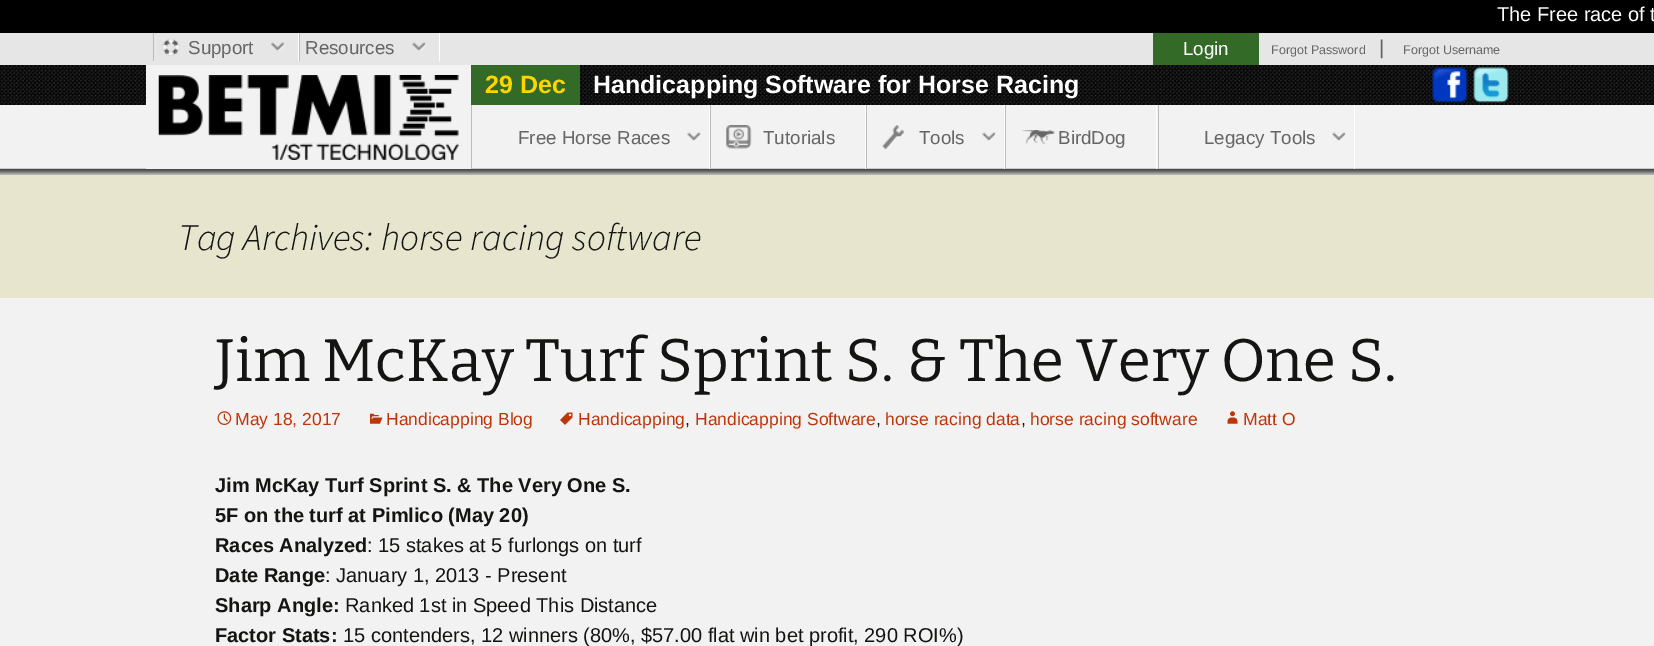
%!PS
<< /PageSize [1654 646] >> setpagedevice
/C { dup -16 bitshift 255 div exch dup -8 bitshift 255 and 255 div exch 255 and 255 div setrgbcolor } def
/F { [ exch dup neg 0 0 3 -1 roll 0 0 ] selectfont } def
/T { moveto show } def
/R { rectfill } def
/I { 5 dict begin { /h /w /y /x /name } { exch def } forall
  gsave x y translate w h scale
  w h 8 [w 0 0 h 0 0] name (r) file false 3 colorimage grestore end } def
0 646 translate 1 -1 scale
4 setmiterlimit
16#F2F2F2 C
0 0 1654 646 R
16#000000 C
0 0 1654 33 R
/LiberationSans-Regular 20 F
16#FFFFFF C
(The Free race of t) 1497 21 T
16#E6E6E6 C
0 33 1654 32 R
(1.rgb) 161 38 19 18 I
16#FFFFFF C
298 33 1 28 R
16#BBBBBB C
153 33 1 28 R
(2.rgb) 271 42 14 9 I
/LiberationSans-Regular 18.75 F
16#666666 C
(Support) 188 54 T
16#FFFFFF C
439 33 1 28 R
16#BBBBBB C
299 33 1 28 R
(3.rgb) 412 42 14 9 I
16#666666 C
(Resources) 305 54 T
16#336A27 C
1153 33 106 32 R
16#FFFFFF C
(Login) 1183 55 T
/LiberationSans-Regular 12.5 F
16#666666 C
(Forgot Password) 1271 54 T
/LiberationSans-Regular 20 F
(|) 1379 54 T
/LiberationSans-Regular 12.5 F
(Forgot Username) 1403 54 T
(4.rgb) 0 65 1654 40 I
(13.rgb) 0 168 1654 7 I
16#F2F2F2 C
146 65 325 104 R
(5.rgb) 158 75 301 85 I
16#336A27 C
471 65 109 40 R
/LiberationSans-Bold 25 F
16#FFD500 C
(29 Dec) 485 93 T
16#FFFFFF C
(Handicapping Software for Horse Racing) 593 93 T
(6.rgb) 1432 67 36 36 I
(7.rgb) 1473 67 36 36 I
709 105 1 64 R
16#BBBBBB C
471 105 1 64 R
(8.rgb) 687 132 14 9 I
/LiberationSans-Regular 18.75 F
16#666666 C
(Free Horse Races) 518 144 T
(9.rgb) 726 125 26 24 I
16#FFFFFF C
865 105 1 64 R
16#BBBBBB C
710 105 1 64 R
16#666666 C
(Tutorials) 763 144 T
(10.rgb) 882 125 23 25 I
16#FFFFFF C
1004 105 1 64 R
16#BBBBBB C
866 105 1 64 R
(11.rgb) 982 132 14 9 I
16#666666 C
(Tools) 919 144 T
(12.rgb) 1021 130 34 14 I
16#FFFFFF C
1156 105 1 64 R
16#BBBBBB C
1005 105 1 64 R
16#666666 C
(BirdDog) 1058 144 T
16#FFFFFF C
1354 105 1 64 R
16#BBBBBB C
1158 105 1 64 R
(11.rgb) 1332 132 14 9 I
16#666666 C
(Legacy Tools) 1204 144 T
16#E8E5CE C
0 175 1654 123 R
/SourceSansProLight-LightItalic 37.5 F
16#141412 C
(Tag Archives: horse racing software) 178 250 T
/Bitter-Regular 60 F
(Jim McKay Turf Sprint S. & The Very One S.) 215 381 T
(14.rgb) 217 411 15 14 I
/LiberationSans-Regular 17.5 F
16#BC360A C
(May 18, 2017) 235 425 T
(15.rgb) 370 413 13 11 I
(Handicapping Blog) 386 425 T
(16.rgb) 560 412 13 13 I
(Handicapping) 578 425 T
16#141412 C
(,) 685 425 T
16#BC360A C
(Handicapping Software) 695 425 T
16#141412 C
(,) 876 425 T
16#BC360A C
(horse racing data) 885 425 T
16#141412 C
(,) 1021 425 T
16#BC360A C
(horse racing software) 1030 425 T
(17.rgb) 1227 411 11 13 I
(Matt O) 1243 425 T
/LiberationSans-Bold 20 F
16#141412 C
(Jim McKay Turf Sprint S. & The Very One S.) 215 492 T
(5F on the turf at Pimlico \(May 20\)) 215 522 T
(Races Analyzed) 215 552 T
/LiberationSans-Regular 20 F
(: 15 stakes at 5 furlongs on turf) 367 552 T
/LiberationSans-Bold 20 F
(Date Range) 215 582 T
/LiberationSans-Regular 20 F
(: January 1, 2013 - Present) 325 582 T
/LiberationSans-Bold 20 F
(Sharp Angle:) 215 612 T
/LiberationSans-Regular 20 F
(Ranked 1st in Speed This Distance) 345 612 T
/LiberationSans-Bold 20 F
(Factor Stats:) 215 642 T
/LiberationSans-Regular 20 F
(15 contenders, 12 winners \(80%, $57.00 flat win bet profit, 290 ROI%\)) 343 642 T
showpage
